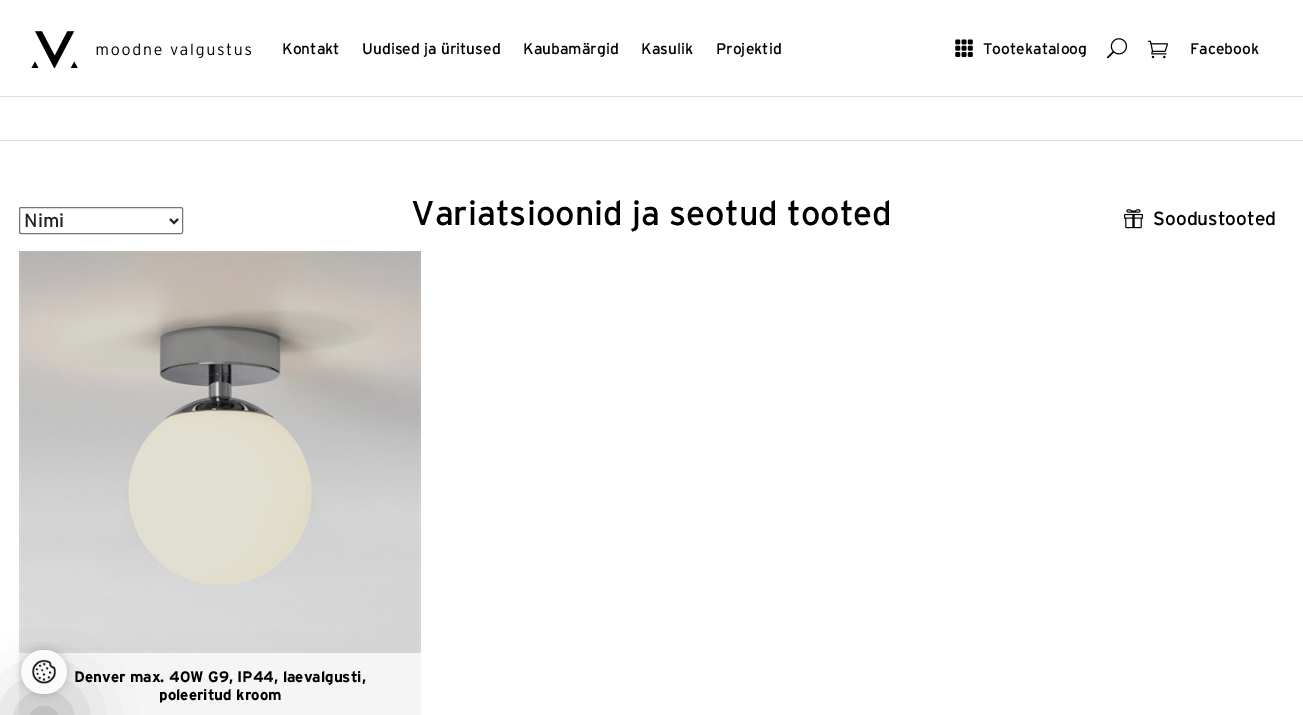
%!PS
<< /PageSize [1303 715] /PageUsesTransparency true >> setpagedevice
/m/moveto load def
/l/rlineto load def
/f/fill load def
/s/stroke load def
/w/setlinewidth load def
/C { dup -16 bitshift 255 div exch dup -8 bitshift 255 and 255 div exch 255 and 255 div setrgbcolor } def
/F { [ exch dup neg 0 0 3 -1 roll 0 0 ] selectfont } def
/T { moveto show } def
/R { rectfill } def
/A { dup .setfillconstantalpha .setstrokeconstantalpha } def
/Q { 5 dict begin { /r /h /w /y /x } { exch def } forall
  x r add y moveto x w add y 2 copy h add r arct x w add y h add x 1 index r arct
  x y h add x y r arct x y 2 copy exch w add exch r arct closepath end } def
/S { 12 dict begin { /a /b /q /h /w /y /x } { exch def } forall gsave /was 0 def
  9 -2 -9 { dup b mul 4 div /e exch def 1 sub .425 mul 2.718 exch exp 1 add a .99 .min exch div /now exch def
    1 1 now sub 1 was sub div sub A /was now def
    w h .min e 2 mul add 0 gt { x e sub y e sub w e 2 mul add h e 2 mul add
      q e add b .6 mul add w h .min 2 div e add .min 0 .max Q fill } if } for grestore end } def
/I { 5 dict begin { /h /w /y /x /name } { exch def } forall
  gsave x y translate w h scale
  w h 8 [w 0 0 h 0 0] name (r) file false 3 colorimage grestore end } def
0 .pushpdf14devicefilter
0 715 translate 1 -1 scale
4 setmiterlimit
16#FFFFFF C
0 0 1303 715 R
16#E0E0E0 C
0 96 1303 1 R
(1.rgb) 31 31 220 37 I
/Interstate-Regular 15.5 F
16#000000 C
(Kontakt) 282 54 T
(Uudised ja üritused) 362 54 T
(Kaubamärgid) 523 54 T
(Kasulik) 641 54 T
(Projektid) 716 54 T
(2.rgb) 955 39 18 18 I
(Tootekataloog) 983 54 T
(3.rgb) 1107 38 21 21 I
(4.rgb) 1148 40 20 19 I
(Facebook) 1190 54 T
16#E0E0E0 C
0 140 1303 1 R
16#767676 C
19.5 207.5 163 26 1.5 Q s
16#222222 C
2 w
170 219 m 4 4 l 4 -4 l s
/Interstate-Regular 19 F
(Nimi) 24 227 T
/Interstate-Regular 34.25 F
16#000000 C
(Variatsioonid ja seotud tooted) 411 225 T
(5.rgb) 1124 209 19 20 I
/Interstate-Regular 19 F
(Soodustooted) 1153 225 T
16#F5F5F5 C
19 251 402 464 R
(6.rgb) 19 251 402 402 I
/Interstate-Bold 15.25 F
16#000000 C
(Denver max. 40W G9, IP44, laevalgusti,) 74 682 T
(poleeritud kroom) 159 700 T
21 698 46 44 22 32 .3 S
21 650 46 44 22 4 .2 S
16#FAFAFA C
21 650 46 44 22 Q f
(7.rgb) 31 659 26 25 I
.poppdf14devicefilter showpage
